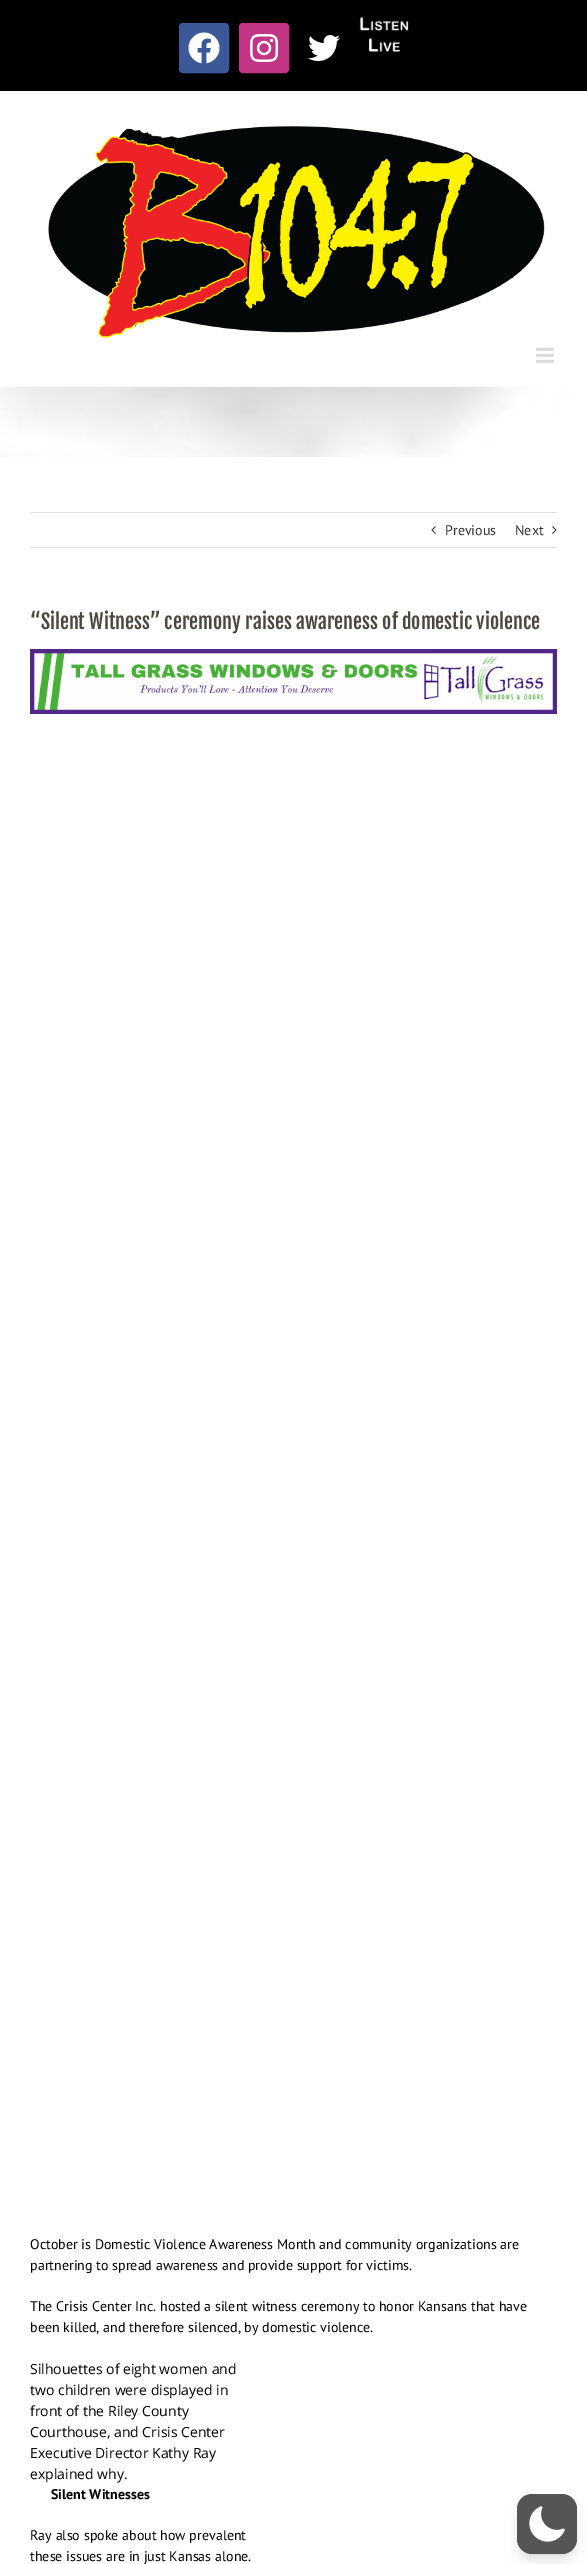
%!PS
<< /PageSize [587 2564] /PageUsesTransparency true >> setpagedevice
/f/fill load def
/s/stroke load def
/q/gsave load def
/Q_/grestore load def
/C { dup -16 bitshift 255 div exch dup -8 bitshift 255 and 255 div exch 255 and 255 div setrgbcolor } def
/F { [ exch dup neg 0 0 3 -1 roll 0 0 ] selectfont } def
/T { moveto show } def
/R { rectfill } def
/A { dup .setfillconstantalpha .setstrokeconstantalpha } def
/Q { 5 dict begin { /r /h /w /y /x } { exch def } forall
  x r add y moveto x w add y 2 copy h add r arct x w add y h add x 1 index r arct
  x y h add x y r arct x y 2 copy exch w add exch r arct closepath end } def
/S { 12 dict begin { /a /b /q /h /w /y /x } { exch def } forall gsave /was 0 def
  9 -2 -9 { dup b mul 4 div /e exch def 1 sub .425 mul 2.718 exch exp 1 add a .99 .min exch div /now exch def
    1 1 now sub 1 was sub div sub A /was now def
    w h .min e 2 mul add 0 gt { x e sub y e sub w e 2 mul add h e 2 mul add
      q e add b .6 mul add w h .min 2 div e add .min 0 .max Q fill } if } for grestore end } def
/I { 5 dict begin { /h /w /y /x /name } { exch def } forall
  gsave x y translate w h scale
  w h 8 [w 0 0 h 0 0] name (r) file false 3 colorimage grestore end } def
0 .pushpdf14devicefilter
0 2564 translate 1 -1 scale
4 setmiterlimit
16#FFFFFF C
0 0 587 2564 R
(1.rgb) 0 387 587 70 I
16#000000 C
0 0 587 91 R
16#3B5998 C
179.5 23.5 49 49 3.5 Q q f Q_
s
(2.rgb) 188 32 32 32 I
16#C13584 C
239.5 23.5 49 49 3.5 Q q f Q_
s
(3.rgb) 250 34 29 28 I
(4.rgb) 308 35 32 26 I
(5.rgb) 359 16 50 36 I
(6.rgb) 48 126 497 212 I
(7.rgb) 536 347 18 16 I
16#E0DEDE C
30 512 527 1 R
30 547 527 1 R
(8.rgb) 431 526 5 8 I
/PTSans-Regular 14 F
16#333333 C
(Previous) 445 535 T
(Next) 515 535 T
(9.rgb) 552 526 5 8 I
/FjallaOne-Regular 20 F
16#4D473F C
(“Silent Witness” ceremony raises awareness of domestic violence) 30 629 T
(10.rgb) 30 649 527 65 I
/PTSans-Regular 14 F
16#000000 C
(October is Domestic Violence Awareness Month and community organizations are) 30 2249 T
(partnering to spread awareness and provide support for victims.) 30 2270 T
(The Crisis Center Inc. hosted a silent witness ceremony to honor Kansans that have) 30 2311 T
(been killed, and therefore silenced, by domestic violence.) 30 2332 T
/OpenSans-Regular 14 F
(Silhouettes of eight women and) 30 2374 T
(two children were displayed in) 30 2395 T
(front of the Riley County) 30 2416 T
(Courthouse, and Crisis Center) 30 2437 T
(Executive Director Kathy Ray) 30 2458 T
(explained why.) 30 2479 T
/PTSans-Bold 14 F
(Silent Witnesses) 51 2499 T
/PTSans-Regular 14 F
(Ray also spoke about how prevalent) 30 2540 T
(these issues are in just Kansas alone.) 30 2561 T
521 2502 52 52 11 3 .1 S
520 2507 54 54 12 7.5 .1 S
16#555555 C
517 2494 60 60 15 Q f
(11.rgb) 529 2506 36 36 I
.poppdf14devicefilter showpage
